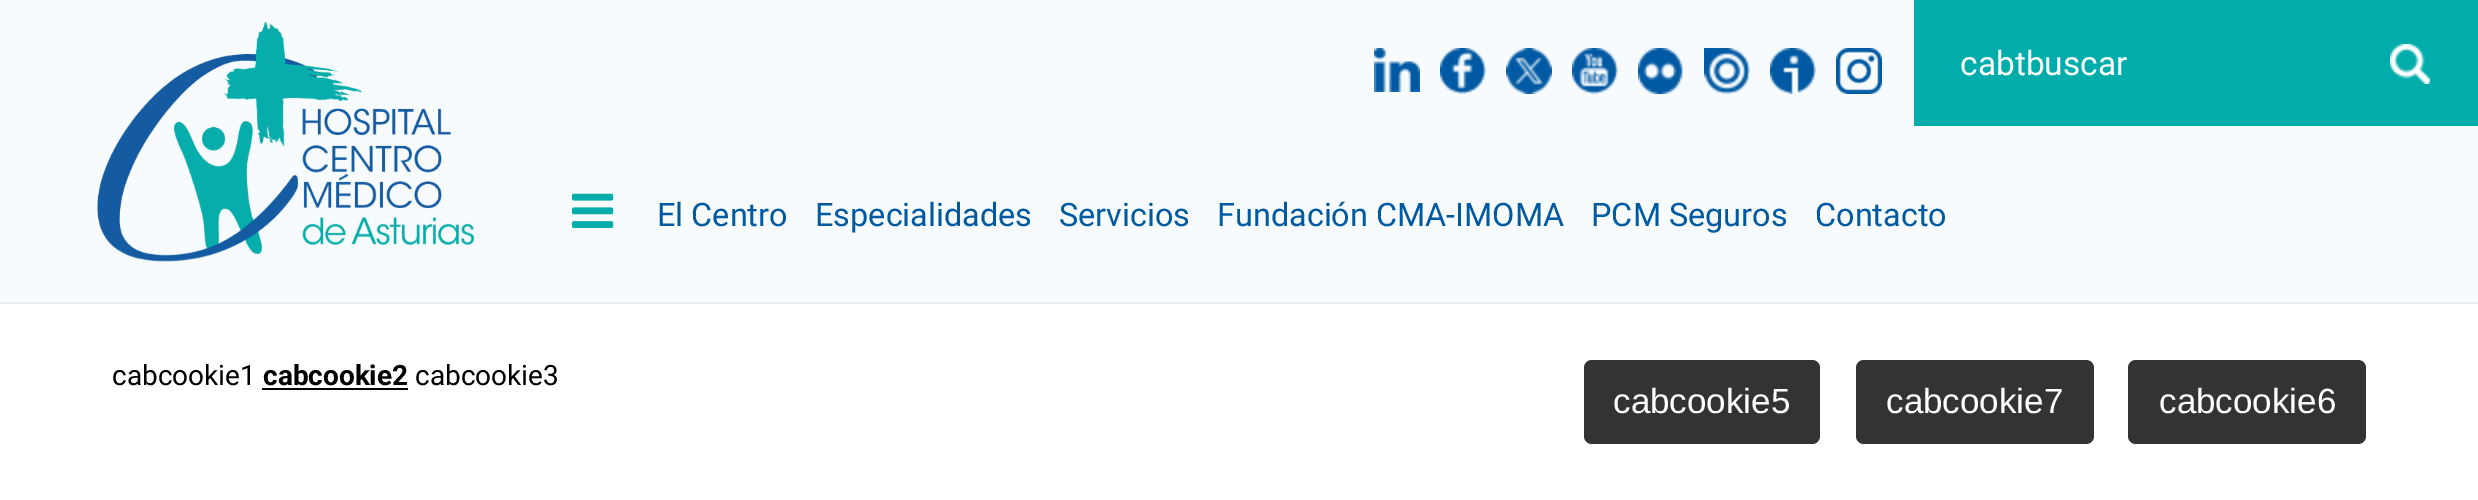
%!PS
<< /PageSize [2478 500] >> setpagedevice
/f/fill load def
/C { dup -16 bitshift 255 div exch dup -8 bitshift 255 and 255 div exch 255 and 255 div setrgbcolor } def
/F { [ exch dup neg 0 0 3 -1 roll 0 0 ] selectfont } def
/T { moveto show } def
/R { rectfill } def
/Q { 5 dict begin { /r /h /w /y /x } { exch def } forall
  x r add y moveto x w add y 2 copy h add r arct x w add y h add x 1 index r arct
  x y h add x y r arct x y 2 copy exch w add exch r arct closepath end } def
/I { 5 dict begin { /h /w /y /x /name } { exch def } forall
  gsave x y translate w h scale
  w h 8 [w 0 0 h 0 0] name (r) file false 3 colorimage grestore end } def
0 500 translate 1 -1 scale
4 setmiterlimit
16#F7FBFD C
0 0 2478 500 R
(1.rgb) 97 22 377 240 I
(2.rgb) 1374 48 46 44 I
(3.rgb) 1440 48 46 46 I
(4.rgb) 1506 48 46 46 I
(5.rgb) 1572 48 46 46 I
(6.rgb) 1638 48 45 46 I
(7.rgb) 1704 48 46 46 I
(8.rgb) 1770 48 46 46 I
(9.rgb) 1836 48 46 46 I
16#00ADAA C
1914 0 564 126 R
/Roboto-Regular 33.5 F
16#FFFFFF C
(cabtbuscar) 1960 75 T
(10.rgb) 2390 44 40 40 I
(11.rgb) 572 193 42 35 I
/Roboto-Regular 32.4 F
16#005AA2 C
(El Centro) 657 226 T
(Especialidades) 815 226 T
(Servicios) 1059 226 T
(Fundación CMA-IMOMA) 1217 226 T
(PCM Seguros) 1591 226 T
(Contacto) 1815 226 T
16#FFFFFF C
0 304 2478 196 R
16#EAEAEA C
0 302 2478 2 R
/Roboto-Regular 28 F
16#000000 C
(cabcookie1) 112 385 T
/Roboto-Bold 28 F
(cabcookie2) 263 385 T
262 388 146 2 R
/Roboto-Regular 28 F
(cabcookie3) 415 385 T
16#333333 C
1584 360 236 84 8 Q f
/LiberationSans-Regular 35 F
16#FFFFFF C
(cabcookie5) 1613 413 T
16#333333 C
1856 360 238 84 8 Q f
16#FFFFFF C
(cabcookie7) 1886 413 T
16#333333 C
2128 360 238 84 8 Q f
16#FFFFFF C
(cabcookie6) 2159 413 T
showpage
